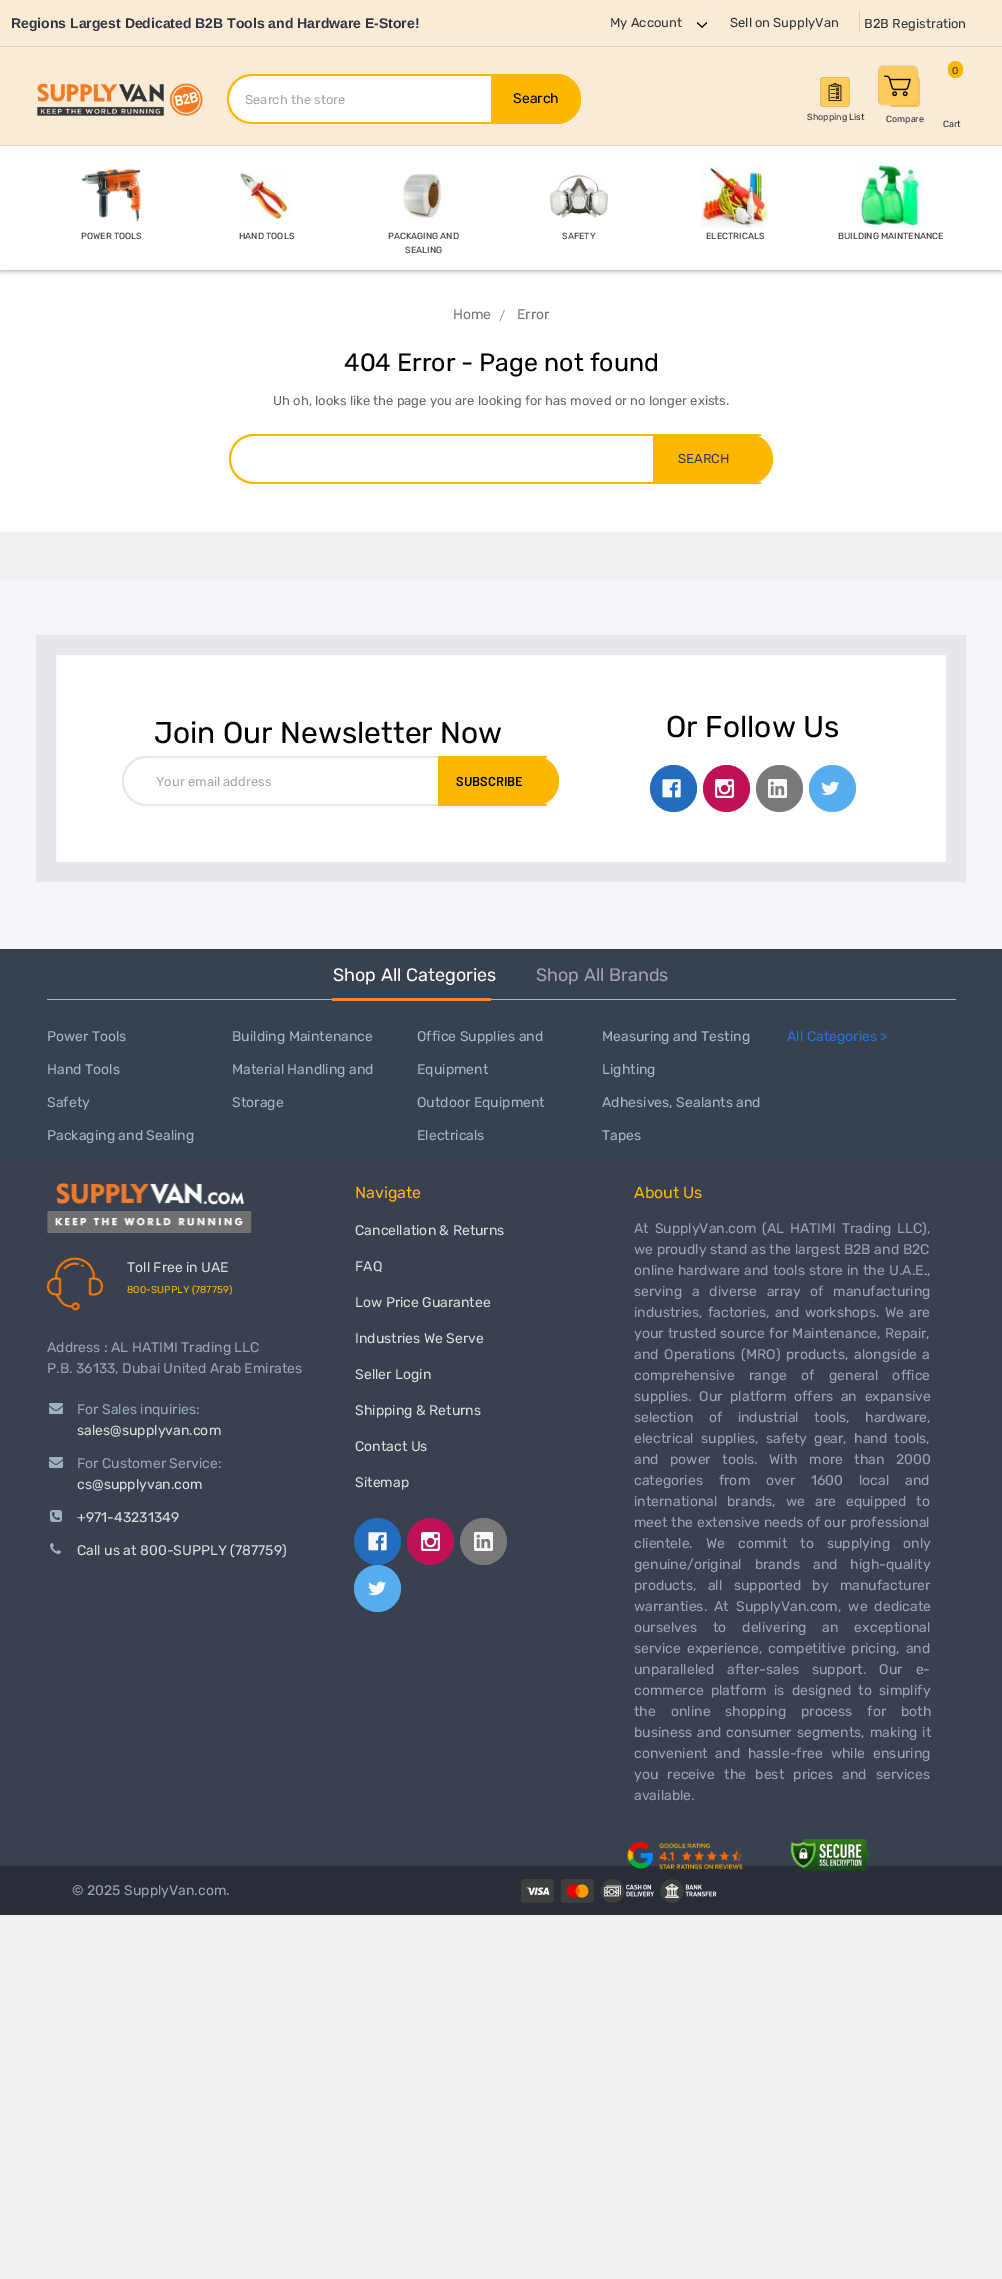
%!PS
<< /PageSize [1002 2279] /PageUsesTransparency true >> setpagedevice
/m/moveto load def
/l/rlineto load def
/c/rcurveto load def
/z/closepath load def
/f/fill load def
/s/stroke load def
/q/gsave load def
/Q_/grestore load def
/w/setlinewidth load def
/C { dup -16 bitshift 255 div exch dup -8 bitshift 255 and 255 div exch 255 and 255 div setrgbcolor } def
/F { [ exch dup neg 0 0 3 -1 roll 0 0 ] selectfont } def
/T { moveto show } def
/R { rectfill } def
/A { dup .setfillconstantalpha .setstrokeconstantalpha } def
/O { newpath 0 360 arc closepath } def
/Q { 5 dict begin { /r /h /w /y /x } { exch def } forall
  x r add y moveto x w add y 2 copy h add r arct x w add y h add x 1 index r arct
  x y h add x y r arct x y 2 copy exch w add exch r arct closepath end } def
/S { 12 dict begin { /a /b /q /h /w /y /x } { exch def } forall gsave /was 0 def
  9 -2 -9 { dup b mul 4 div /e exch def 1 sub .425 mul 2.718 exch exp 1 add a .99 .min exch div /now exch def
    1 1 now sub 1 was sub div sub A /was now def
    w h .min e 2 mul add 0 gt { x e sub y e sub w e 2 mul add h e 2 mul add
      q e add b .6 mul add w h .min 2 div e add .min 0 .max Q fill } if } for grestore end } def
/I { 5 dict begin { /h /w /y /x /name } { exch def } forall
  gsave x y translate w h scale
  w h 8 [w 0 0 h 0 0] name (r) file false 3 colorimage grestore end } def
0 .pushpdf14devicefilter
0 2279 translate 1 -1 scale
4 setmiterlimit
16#F1F1F2 C
0 0 1002 2279 R
16#FFFFFF C
0 270 1002 262 R
16#000000 C
0 2 1002 270 0 2 .25 S
16#FFFFFF C
0 146 1002 124 R
16#FAEBD7 C
0 0 1002 46 R
16#DCCFBD C
0 46 1002 1 R
/LiberationSans-Bold 14 F
16#313440 C
(Regions Largest Dedicated B2B Tools and Hardware E-Store!) 11 28 T
/Rubik-Regular 13 F
16#333333 C
(My Account) 610 27 T
(1.rgb) 697 22 10 6 I
16#EBEBEB C
719 12 1 20 R
16#333333 C
(Sell on SupplyVan) 730 27 T
16#DACCBB C
859 11 1 21 R
16#333333 C
(B2B Registration) 864 28 T
16#FAEBD7 C
0 47 1002 98 R
16#DFD1BF C
0 145 1002 1 R
(2.rgb) 37 83 166 33 I
16#FFFFFF C
227 74 354 50 25 Q f
16#FCB700 C
252 74 m 304 0 l 14 0 25 11 25 25 c 0 14 -11 25 -25 25 c -304 0 l -14 0 -25 -11 -25 -25 c 0 -14 11 -25 25 -25 c z 252 76 m 304 0 l 14 0 25 10 25 23 c 0 13 -11 23 -25 23 c -304 0 l -13 0 -23 -10 -23 -23 c 0 -13 10 -23 23 -23 c z eofill
16#A5A5A5 C
(Search the store) 245 104 T
16#FCB700 C
491 74 m 65 0 l 14 0 25 11 25 25 c 0 14 -11 25 -25 25 c -65 0 l z f
/Rubik-Regular 14 F
16#000000 C
(Search) 513 103 T
(3.rgb) 820 77 30 30 I
/Rubik-Regular 9 F
16#333333 C
(Shopping List) 807 120 T
(4.rgb) 890 77 30 30 I
(Compare) 886 122 T
(5.rgb) 878 65 40 41 I
16#FCB700 C
948 61 15 17 7.5 Q f
/Rubik-Regular 10 F
16#333333 C
(0) 952 74 T
/Rubik-Regular 9 F
(Cart) 943 127 T
(6.rgb) 81 168 61 54 I
(POWER TOOLS) 81 239 T
(7.rgb) 239 170 53 51 I
(HAND TOOLS) 239 239 T
(8.rgb) 403 174 40 45 I
(PACKAGING AND) 388 239 T
(SEALING) 405 253 T
(9.rgb) 549 174 61 44 I
(SAFETY) 562 239 T
(10.rgb) 701 166 67 62 I
(ELECTRICALS) 706 239 T
(11.rgb) 857 162 66 66 I
(BUILDING MAINTENANCE) 838 239 T
/Rubik-Regular 14 F
16#757575 C
(Home) 453 319 T
/Rubik-Regular 13 F
16#A5A5A5 C
(/) 499 320 T
/Rubik-Regular 14 F
16#757575 C
(Error) 517 319 T
/Rubik-Regular 25 F
16#000000 C
(404 Error - Page not found) 344 371 T
/Rubik-Regular 13 F
16#666666 C
(Uh oh, looks like the page you are looking for has moved or no longer exists.) 273 405 T
16#FCB700 C
254 434 m 399 0 l 0 50 l -399 0 l -14 0 -25 -11 -25 -25 c 0 -14 11 -25 25 -25 c z 254 436 m 399 0 l 0 46 l -399 0 l -13 0 -23 -10 -23 -23 c 0 -13 10 -23 23 -23 c z eofill
653 434 m 95 0 l 14 0 25 11 25 25 c 0 14 -11 25 -25 25 c -95 0 l z f
748 434 13 2 R
748 482 13 2 R
16#333E48 C
(SEARCH) 678 463 T
16#F5F6F9 C
0 580 1002 369 R
16#FFFFFF C
46 645 m 910 0 l 0 227 l -910 0 l z q f Q_
16#E5E7EA C
20 w
s
/Rubik-Regular 30 F
16#000000 C
(Join Our Newsletter Now) 154 743 T
16#E4E7F0 C
147 756 m 291 0 l 0 50 l -291 0 l -14 0 -25 -11 -25 -25 c 0 -14 11 -25 25 -25 c z 147 758 m 291 0 l 0 46 l -291 0 l -13 0 -23 -10 -23 -23 c 0 -13 10 -23 23 -23 c z eofill
/Rubik-Regular 13 F
16#A5A5A5 C
(Your email address) 156 786 T
16#FCB700 C
438 756 m 96 0 l 14 0 25 11 25 25 c 0 14 -11 25 -25 25 c -96 0 l z f
534 756 13 2 R
534 804 13 2 R
/Barlow-SemiBold 13 F
16#000000 C
(SUBSCRIBE) 456 786 T
/Rubik-Regular 30 F
(Or Follow Us) 666 737 T
16#236CBE C
673.5 788.5 23.5 O f
(12.rgb) 662 779 19 19 I
16#C01157 C
726.5 788.5 23.5 O f
(13.rgb) 715 779 19 19 I
16#797979 C
779.5 788.5 23.5 O f
(14.rgb) 768 779 19 19 I
16#55ACEE C
832.5 788.5 23.5 O f
(15.rgb) 821 781 19 15 I
16#38414F C
0 949 1002 209 R
16#A9B5C4 C
47 999 909 1 R
/Rubik-Regular 18 F
16#FFFFFF C
(Shop All Categories) 333 981 T
16#FA832A C
332 998 159 3 R
16#9DA3AF C
(Shop All Brands) 536 981 T
/Rubik-Regular 14 F
16#A9B5C4 C
(Power Tools) 47 1041 T
(Building Maintenance) 232 1041 T
(Office Supplies and) 417 1041 T
(Equipment) 417 1074 T
(Measuring and Testing) 602 1041 T
16#2573D4 C
(All Categories >) 787 1041 T
16#A9B5C4 C
(Hand Tools) 47 1074 T
(Material Handling and) 232 1074 T
(Storage) 232 1107 T
(Lighting) 602 1074 T
(Safety) 47 1107 T
(Outdoor Equipment) 417 1107 T
(Adhesives, Sealants and) 602 1107 T
(Tapes) 602 1140 T
(Packaging and Sealing) 47 1140 T
(Electricals) 417 1140 T
16#394150 C
0 1158 1002 708 R
(16.rgb) 47 1183 205 50 I
(17.rgb) 47 1257 56 54 I
16#DDDDDD C
(Toll Free in UAE) 127 1272 T
/Rubik-Regular 10 F
16#FCB700 C
(800-SUPPLY \(787759\)) 127 1293 T
/Rubik-Regular 14 F
16#9DA3AF C
(Address : AL HATIMI Trading LLC) 47 1352 T
(P.B. 36133, Dubai United Arab Emirates) 47 1373 T
(18.rgb) 49 1403 14 11 I
16#9AA6B5 C
(For Sales inquiries:) 77 1414 T
16#DDDDDD C
(sales@supplyvan.com) 77 1435 T
(18.rgb) 49 1457 14 11 I
16#9AA6B5 C
(For Customer Service:) 77 1468 T
16#DDDDDD C
(cs@supplyvan.com) 77 1489 T
(19.rgb) 50 1510 12 12 I
(+971-43231349) 77 1522 T
(20.rgb) 50 1543 11 11 I
(Call us at 800-SUPPLY \(787759\)) 77 1555 T
/Rubik-Regular 16 F
16#FCB700 C
(Navigate) 355 1198 T
/Rubik-Regular 14 F
16#DDDDDD C
(Cancellation & Returns) 355 1235 T
(FAQ) 355 1271 T
(Low Price Guarantee) 355 1307 T
(Industries We Serve) 355 1343 T
(Seller Login) 355 1379 T
(Shipping & Returns) 355 1415 T
(Contact Us) 355 1451 T
(Sitemap) 355 1487 T
16#236CBE C
377.5 1541.5 23.5 O f
(12.rgb) 368 1532 19 19 I
16#C01157 C
430.5 1541.5 23.5 O f
(13.rgb) 421 1532 19 19 I
16#797979 C
483.5 1541.5 23.5 O f
(14.rgb) 474 1532 19 19 I
16#55ACEE C
377.5 1588.5 23.5 O f
(15.rgb) 368 1581 19 15 I
/Rubik-Regular 16 F
16#FCB700 C
(About Us) 634 1198 T
/Rubik-Regular 14 F
16#9DA3AF C
634 1233 m 2.25 0 32 (At SupplyVan.com \(AL HATIMI Trading LLC\),) widthshow
634 1254 m .25 0 32 (we proudly stand as the largest B2B and B2C) widthshow
634 1275 m .75 0 32 (online hardware and tools store in the U.A.E.,) widthshow
634 1296 m 6.25 0 32 (serving a diverse array of manufacturing) widthshow
634 1317 m 2 0 32 (industries, factories, and workshops. We are) widthshow
634 1338 m 1 0 32 (your trusted source for Maintenance, Repair,) widthshow
634 1359 m 2.25 0 32 (and Operations \(MRO\) products, alongside a) widthshow
634 1380 m 11 0 32 (comprehensive range of general office) widthshow
634 1401 m 4.25 0 32 (supplies. Our platform offers an expansive) widthshow
634 1422 m 12 0 32 (selection of industrial tools, hardware,) widthshow
634 1443 m 3.75 0 32 (electrical supplies, safety gear, hand tools,) widthshow
634 1464 m 8 0 32 (and power tools. With more than 2000) widthshow
634 1485 m 12.5 0 32 (categories from over 1600 local and) widthshow
634 1506 m 6.5 0 32 (international brands, we are equipped to) widthshow
634 1527 m .25 0 32 (meet the extensive needs of our professional) widthshow
634 1548 m 9.5 0 32 (clientele. We commit to supplying only) widthshow
634 1569 m 9.5 0 32 (genuine/original brands and high-quality) widthshow
634 1590 m 8 0 32 (products, all supported by manufacturer) widthshow
634 1611 m 3.5 0 32 (warranties. At SupplyVan.com, we dedicate) widthshow
634 1632 m 12.5 0 32 (ourselves to delivering an exceptional) widthshow
634 1653 m 2.25 0 32 (service experience, competitive pricing, and) widthshow
634 1674 m 9.5 0 32 (unparalleled after-sales support. Our e-) widthshow
634 1695 m 3.75 0 32 (commerce platform is designed to simplify) widthshow
634 1716 m 11.5 0 32 (the online shopping process for both) widthshow
634 1737 m 1.5 0 32 (business and consumer segments, making it) widthshow
634 1758 m 4.5 0 32 (convenient and hassle-free while ensuring) widthshow
634 1779 m 5.75 0 32 (you receive the best prices and services) widthshow
(available.) 634 1800 T
16#282D38 C
0 1866 1002 49 R
(21.rgb) 627 1841 116 29 I
(22.rgb) 790 1839 80 32 I
16#9AA6B5 C
(© 2025 SupplyVan.com.) 72 1895 T
(23.rgb) 521 1879 196 24 I
.poppdf14devicefilter showpage
